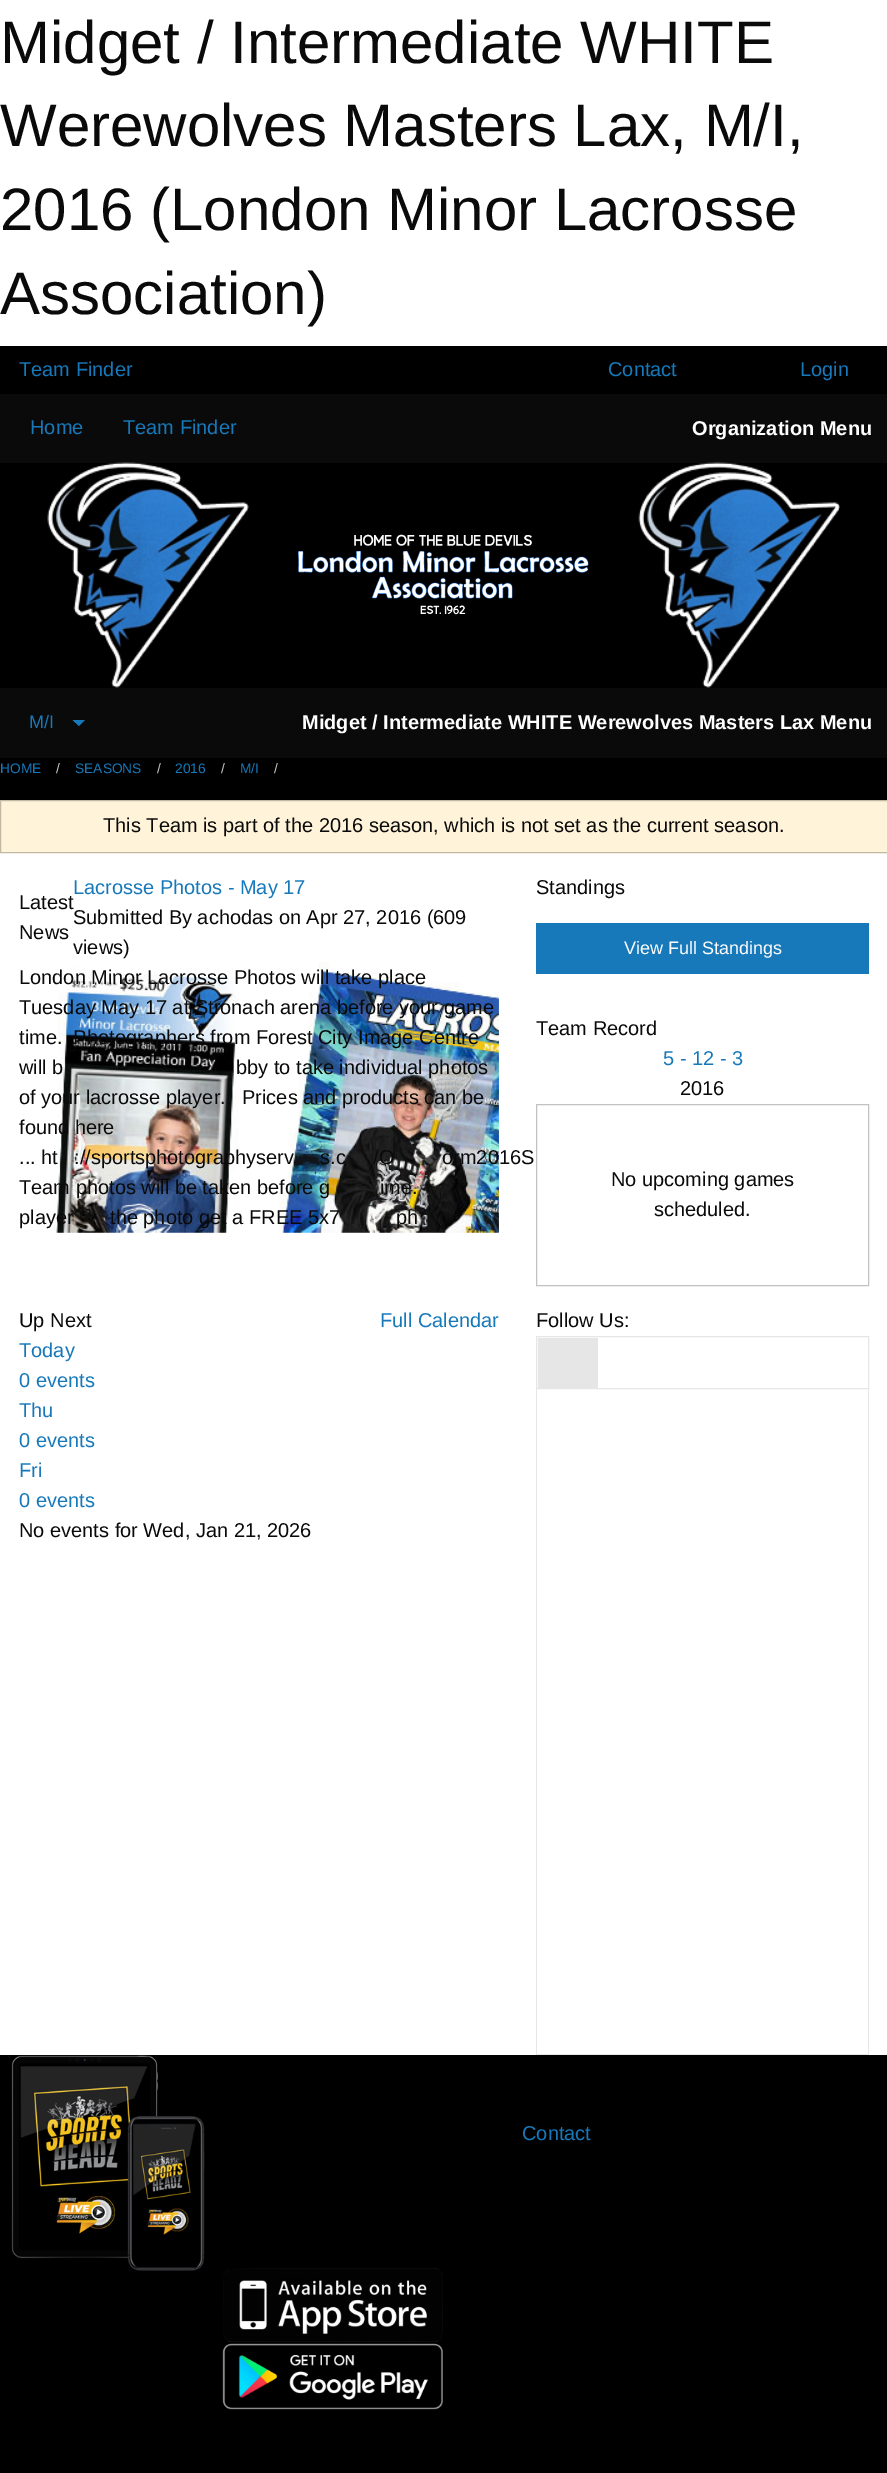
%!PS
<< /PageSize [887 2473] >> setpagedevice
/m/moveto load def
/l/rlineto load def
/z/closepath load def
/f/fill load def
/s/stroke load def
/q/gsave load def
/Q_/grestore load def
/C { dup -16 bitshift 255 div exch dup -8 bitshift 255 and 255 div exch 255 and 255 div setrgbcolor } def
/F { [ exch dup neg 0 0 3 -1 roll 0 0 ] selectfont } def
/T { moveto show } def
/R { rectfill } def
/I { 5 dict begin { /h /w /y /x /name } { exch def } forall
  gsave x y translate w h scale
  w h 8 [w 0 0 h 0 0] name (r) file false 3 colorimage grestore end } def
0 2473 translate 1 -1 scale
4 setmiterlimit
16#FFFFFF C
0 0 887 2473 R
/LiberationSans-Regular 60 F
16#0A0A0A C
(Midget / Intermediate WHITE) 0 63 T
(Werewolves Masters Lax, M/I,) 0 146 T
(2016 \(London Minor Lacrosse) 0 230 T
(Association\)) 0 314 T
16#000000 C
0 346 887 2127 R
/LiberationSans-Regular 20 F
16#1779BA C
(Team Finder) 19 376 T
(Contact) 608 376 T
(Login) 800 376 T
16#0A0A0A C
0 394 887 69 R
16#1779BA C
(Home) 30 434 T
(Team Finder) 123 434 T
/LiberationSans-Bold 20 F
16#FEFEFE C
(Organization Menu) 692 435 T
(1.rgb) 47 462 202 226 I
(2.rgb) 298 534 291 81 I
(3.rgb) 638 462 202 226 I
16#0A0A0A C
0 688 887 70 R
/LiberationSans-Regular 18 F
16#1779BA C
(M/I) 29 728 T
72.5 720 m 12.5 0 l -6 6 l z f
/LiberationSans-Bold 20 F
16#FEFEFE C
(Midget / Intermediate WHITE Werewolves Masters Lax Menu) 302 729 T
/LiberationSans-Regular 13.75 F
16#1779BA C
(HOME) 0 773 T
16#CACACA C
(/) 56 773 T
16#1779BA C
(SEASONS) 75 773 T
16#CACACA C
(/) 157 773 T
16#1779BA C
(2016) 175 773 T
16#CACACA C
(/) 221 773 T
16#1779BA C
(M/I) 240 773 T
16#CACACA C
(/) 274 773 T
16#FFFFFF C
0 853 887 1202 R
16#FFF3D9 C
.5 800.5 m 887 0 l 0 52 l -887 0 l z q f Q_
16#C2B9A5 C
s
/LiberationSans-Regular 20 F
16#0A0A0A C
(This Team is part of the 2016 season, which is not set as the current season.) 103 832 T
(Latest) 19 909 T
(News) 19 939 T
16#1779BA C
(Lacrosse Photos - May 17) 73 894 T
16#0A0A0A C
(Submitted By achodas on Apr 27, 2016 \(609) 73 924 T
(views\)) 73 954 T
(4.rgb) 53 962 446 271 I
(5.rgb) 56 962 443 271 I
(London Minor Lacrosse Photos will take place) 19 984 T
(Tuesday May 17 at Stronach arena before your game) 19 1014 T
(time.  Photographers from Forest City Image Centre) 19 1044 T
(will b) 19 1074 T
(bby to take individual photos) 236 1074 T
(of your lacrosse player.) 19 1104 T
(Prices and products can be) 242 1104 T
(found here) 19 1134 T
(... ht) 19 1164 T
(://sportsphotographyserv) 74 1164 T
(s.c) 320 1164 T
(/O) 373 1164 T
(orm2016S) 442 1164 T
(Team photos will be taken before g) 19 1194 T
(ime.) 380 1194 T
(player) 19 1224 T
(the photo get a FREE 5x7) 110 1224 T
(ph) 396 1224 T
(Standings) 536 894 T
16#1779BA C
536 923 333 51 R
/LiberationSans-Regular 18 F
16#FEFEFE C
(View Full Standings) 624 954 T
/LiberationSans-Regular 20 F
16#0A0A0A C
(Team Record) 536 1035 T
16#1779BA C
(5 - 12 - 3) 663 1065 T
16#0A0A0A C
(2016) 680 1095 T
16#C2C2C2 C
536.5 1104.5 332 181 rectstroke
16#0A0A0A C
(No upcoming games) 611 1186 T
(scheduled.) 654 1216 T
(Up Next) 19 1327 T
16#1779BA C
(Full Calendar) 380 1327 T
(Today) 19 1357 T
(0 events) 19 1387 T
(Thu) 19 1417 T
(0 events) 19 1447 T
(Fri) 19 1477 T
(0 events) 19 1507 T
16#0A0A0A C
(No events for Wed, Jan 21, 2026) 19 1537 T
(Follow Us:) 536 1327 T
16#E6E6E6 C
536.5 1336.5 332 52 rectstroke
538 1338 60 50 R
868 1389 1 666 R
536 2054 333 1 R
536 1389 1 666 R
(6.rgb) 11 2055 194 216 I
(7.rgb) 223 2268 220 74 I
(8.rgb) 222 2343 221 67 I
16#1779BA C
(Contact) 522 2140 T
showpage
